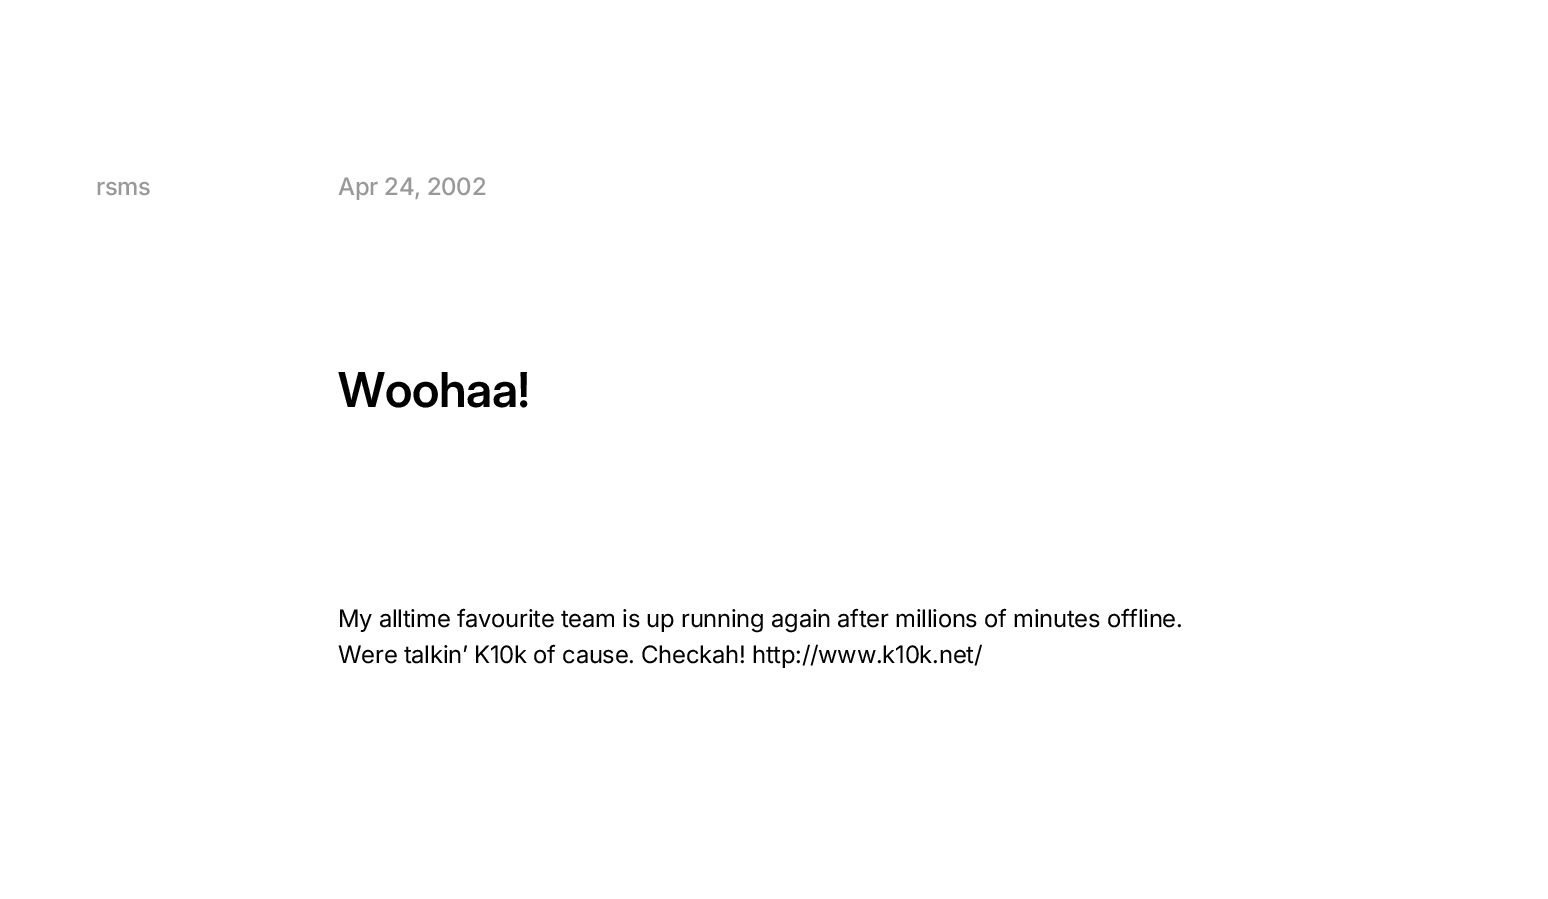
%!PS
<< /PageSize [1548 899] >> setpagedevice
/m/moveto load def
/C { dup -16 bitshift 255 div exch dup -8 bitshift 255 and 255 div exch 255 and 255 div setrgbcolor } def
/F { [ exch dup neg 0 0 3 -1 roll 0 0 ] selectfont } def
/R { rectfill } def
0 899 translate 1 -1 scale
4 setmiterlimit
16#FFFFFF C
0 0 1548 899 R
/Inter-Medium 24 F
16#999999 C
96 195 m -.25 0 (rsms) ashow
338 195 m -.25 0 (Apr 24, 2002) ashow
/Inter-SemiBold 48 F
16#000000 C
338 407 m -.25 0 (Woohaa!) ashow
/Inter-Regular 24 F
338 627 m -.25 0 (My alltime favourite team is up running again after millions of minutes offline.) ashow
338 663 m -.25 0 (Were talkin’ K10k of cause. Checkah! http://www.k10k.net/) ashow
showpage
